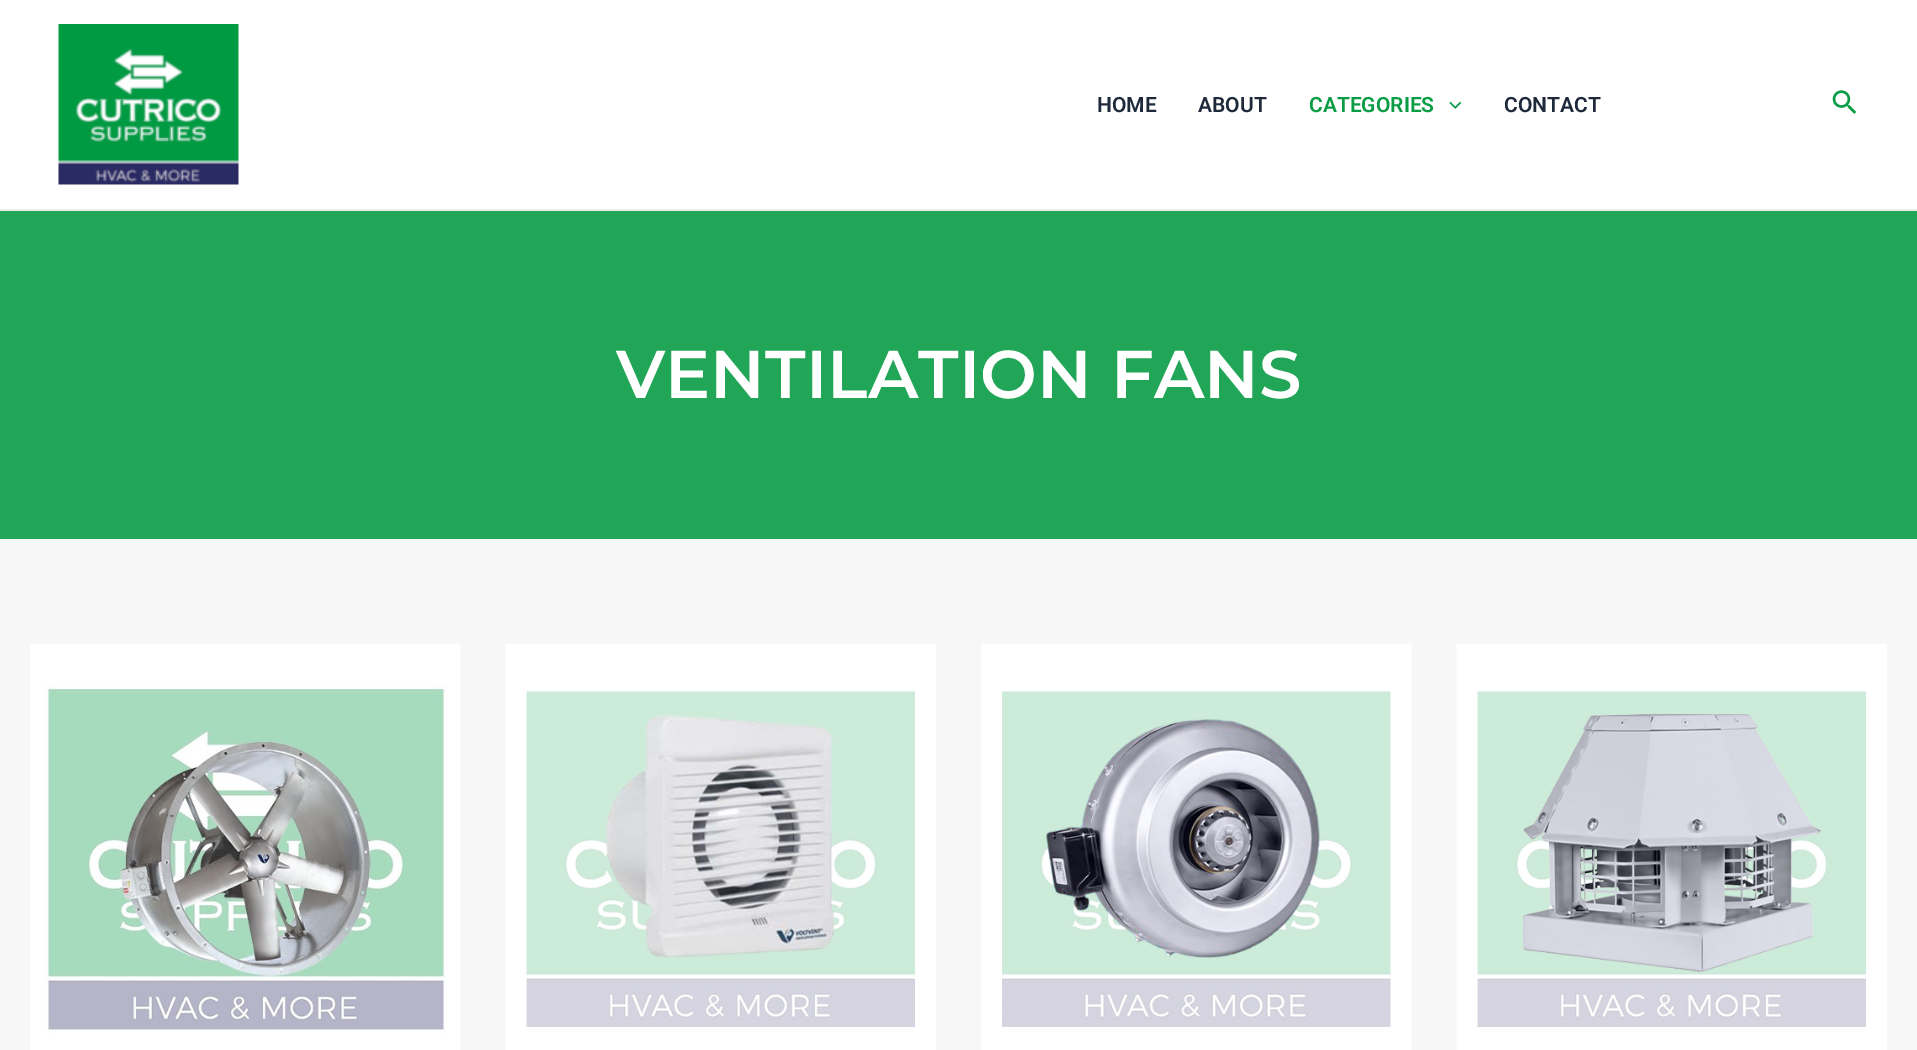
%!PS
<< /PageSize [1917 1050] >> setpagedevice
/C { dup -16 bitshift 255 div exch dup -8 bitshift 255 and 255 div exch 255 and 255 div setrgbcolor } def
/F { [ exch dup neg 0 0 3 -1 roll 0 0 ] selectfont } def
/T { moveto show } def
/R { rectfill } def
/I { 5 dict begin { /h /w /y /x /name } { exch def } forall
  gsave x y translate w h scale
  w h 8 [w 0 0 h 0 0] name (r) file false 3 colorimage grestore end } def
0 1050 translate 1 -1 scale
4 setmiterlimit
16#FFFFFF C
0 0 1917 1050 R
16#EAEAEA C
0 209 1917 2 R
(1.rgb) 58 24 181 161 I
/Roboto-SemiBold 21 F
16#1E293B C
(HOME) 1097 112 T
(ABOUT) 1198 112 T
16#089C44 C
(CATEGORIES) 1309 112 T
(2.rgb) 1449 101 12 8 I
16#1E293B C
(CONTACT) 1504 112 T
(3.rgb) 1832 90 24 24 I
16#21A657 C
0 211 1917 328 R
/Montserrat-SemiBold 67.5 F
16#FFFFFF C
(VENTILATION FANS) 616 398 T
16#F7F7F7 C
0 539 1917 511 R
(4.rgb) 30 643 431 407 I
(5.rgb) 505 643 431 407 I
(6.rgb) 981 643 431 407 I
(7.rgb) 1456 643 431 407 I
showpage
